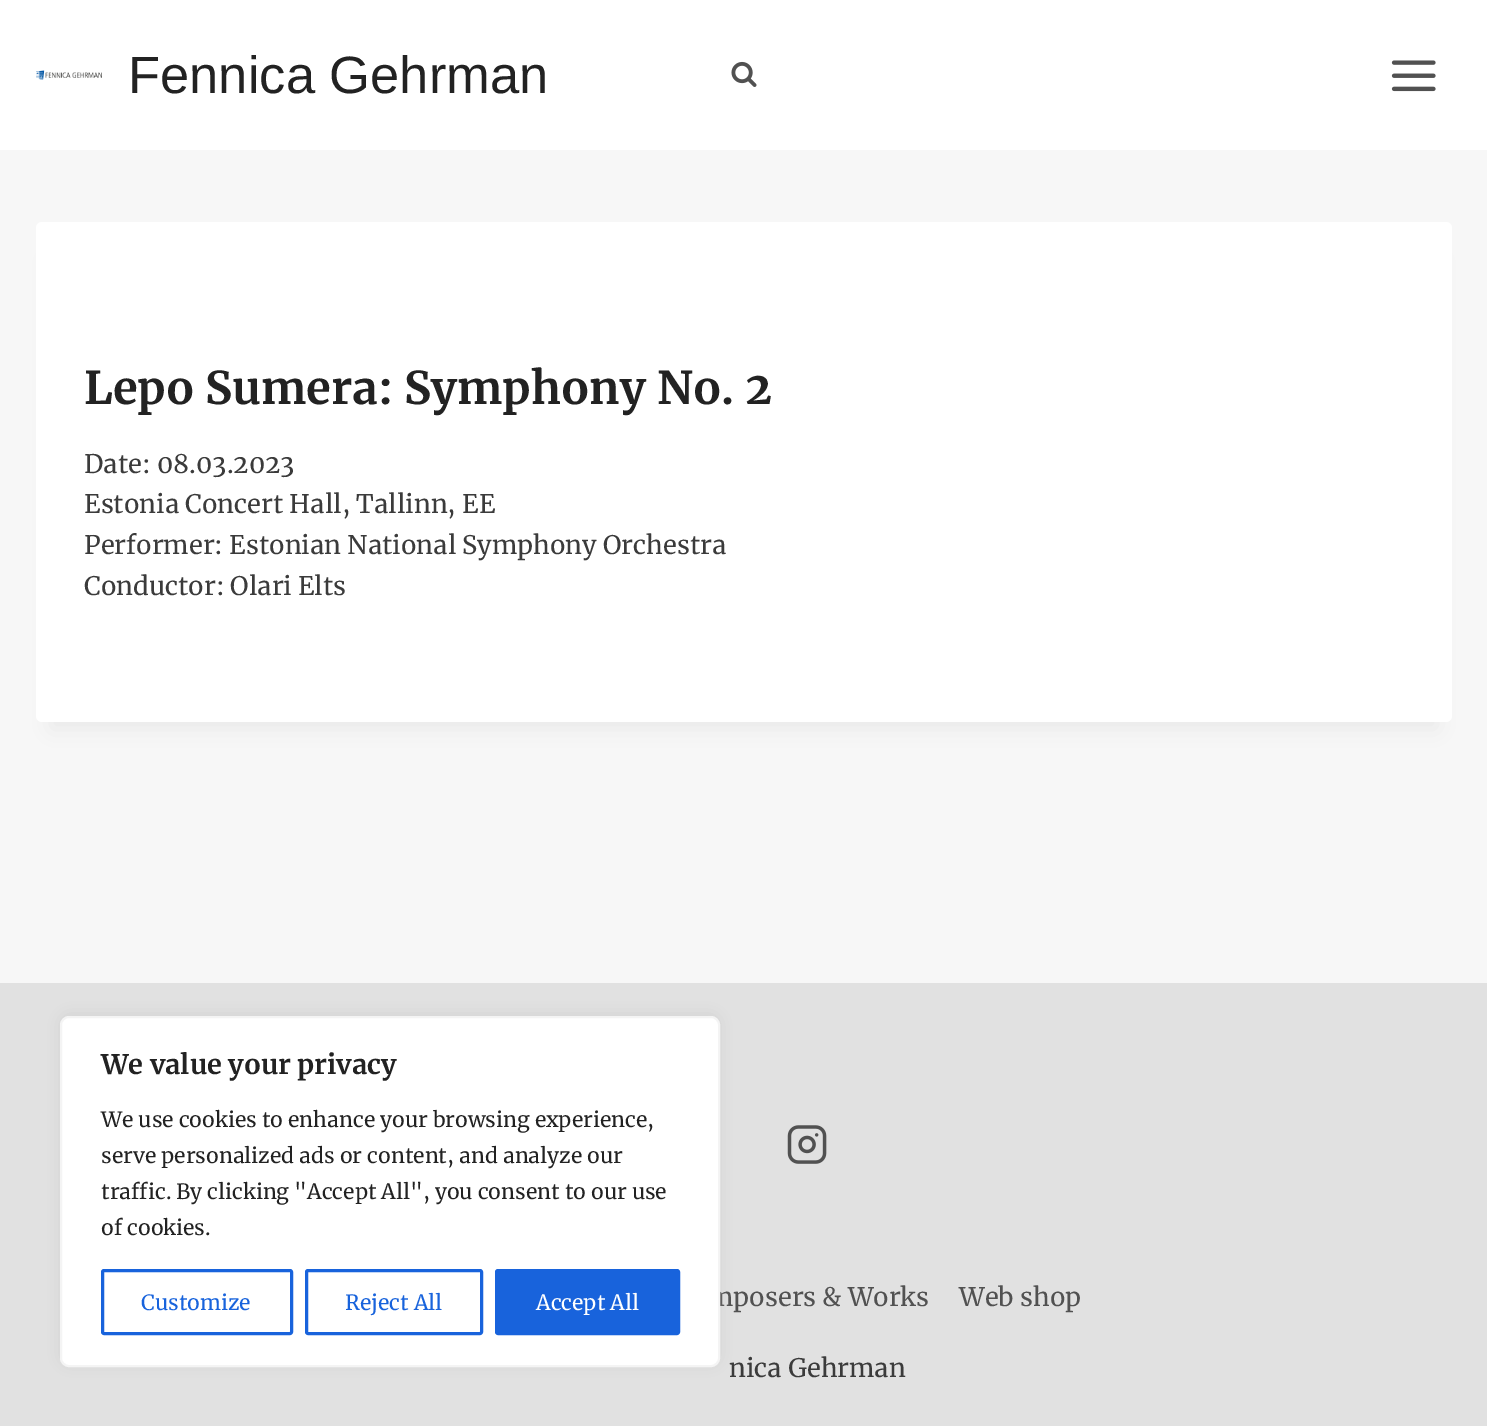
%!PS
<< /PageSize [1487 1426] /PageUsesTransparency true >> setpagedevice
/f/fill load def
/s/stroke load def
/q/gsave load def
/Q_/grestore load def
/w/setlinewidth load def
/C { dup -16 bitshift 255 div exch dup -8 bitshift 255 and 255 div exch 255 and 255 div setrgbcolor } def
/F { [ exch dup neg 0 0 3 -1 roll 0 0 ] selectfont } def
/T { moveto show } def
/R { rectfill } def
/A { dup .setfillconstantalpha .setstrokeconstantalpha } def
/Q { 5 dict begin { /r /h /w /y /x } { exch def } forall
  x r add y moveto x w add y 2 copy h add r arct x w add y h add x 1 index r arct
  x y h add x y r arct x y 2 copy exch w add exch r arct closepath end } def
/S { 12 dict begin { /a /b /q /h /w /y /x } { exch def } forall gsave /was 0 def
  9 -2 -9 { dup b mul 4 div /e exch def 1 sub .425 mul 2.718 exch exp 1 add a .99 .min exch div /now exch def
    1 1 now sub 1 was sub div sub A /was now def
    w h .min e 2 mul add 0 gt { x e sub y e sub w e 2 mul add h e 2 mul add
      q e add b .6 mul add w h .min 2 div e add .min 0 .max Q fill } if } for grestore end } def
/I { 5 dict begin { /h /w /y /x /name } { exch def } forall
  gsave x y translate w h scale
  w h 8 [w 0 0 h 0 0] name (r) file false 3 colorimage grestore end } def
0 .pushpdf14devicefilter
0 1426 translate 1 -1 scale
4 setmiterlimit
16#F7F7F7 C
0 0 1487 1426 R
16#FFFFFF C
0 0 1487 150 R
(1.rgb) 36 70 66 10 I
/LiberationSans-Regular 52.5 F
16#222222 C
(Fennica Gehrman) 128 93 T
(2.rgb) 731 61 26 26 I
(3.rgb) 1391 60 45 32 I
16#000000 C
51 260 1386 469 0 11 .05 S
16#FFFFFF C
36 222 1416 500 6 Q f
/Merriweather-Bold 45 F
16#222222 C
(Lepo Sumera: Symphony No. 2) 84 404 T
/Merriweather-Regular 25.5 F
16#3B3B3B C
(Date: 08.03.2023) 84 473 T
(Estonia Concert Hall, Tallinn, EE) 84 513 T
(Performer: Estonian National Symphony Orchestra) 84 554 T
(Conductor: Olari Elts) 84 595 T
16#E1E1E1 C
0 983 1487 443 R
(4.rgb) 787 1125 40 39 I
16#515151 C
(mposers & Works) 708 1306 T
(Web shop) 959 1306 T
16#3B3B3B C
(nica Gehrman) 729 1377 T
16#ACABAB C
60 1014 660 351 9 7.5 .3 S
16#FFFFFF C
61 1017 658 349 8 Q q f Q_
16#F4F4F4 C
2 w
s
/Merriweather-Bold 27 F
16#222222 C
(We value your privacy) 101 1074 T
/Merriweather-Regular 21 F
(We use cookies to enhance your browsing experience,) 101 1127 T
(serve personalized ads or content, and analyze our) 101 1163 T
(traffic. By clicking "Accept All", you consent to our use) 101 1199 T
(of cookies.) 101 1235 T
16#1863DC C
3 w
102.5 1270.5 189 63 1.5 Q s
(Customize) 141 1310 T
306.5 1270.5 175 63 1.5 Q s
(Reject All) 345 1310 T
496.5 1270.5 182 63 1.5 Q q f Q_
s
16#FFFFFF C
(Accept All) 536 1310 T
.poppdf14devicefilter showpage
